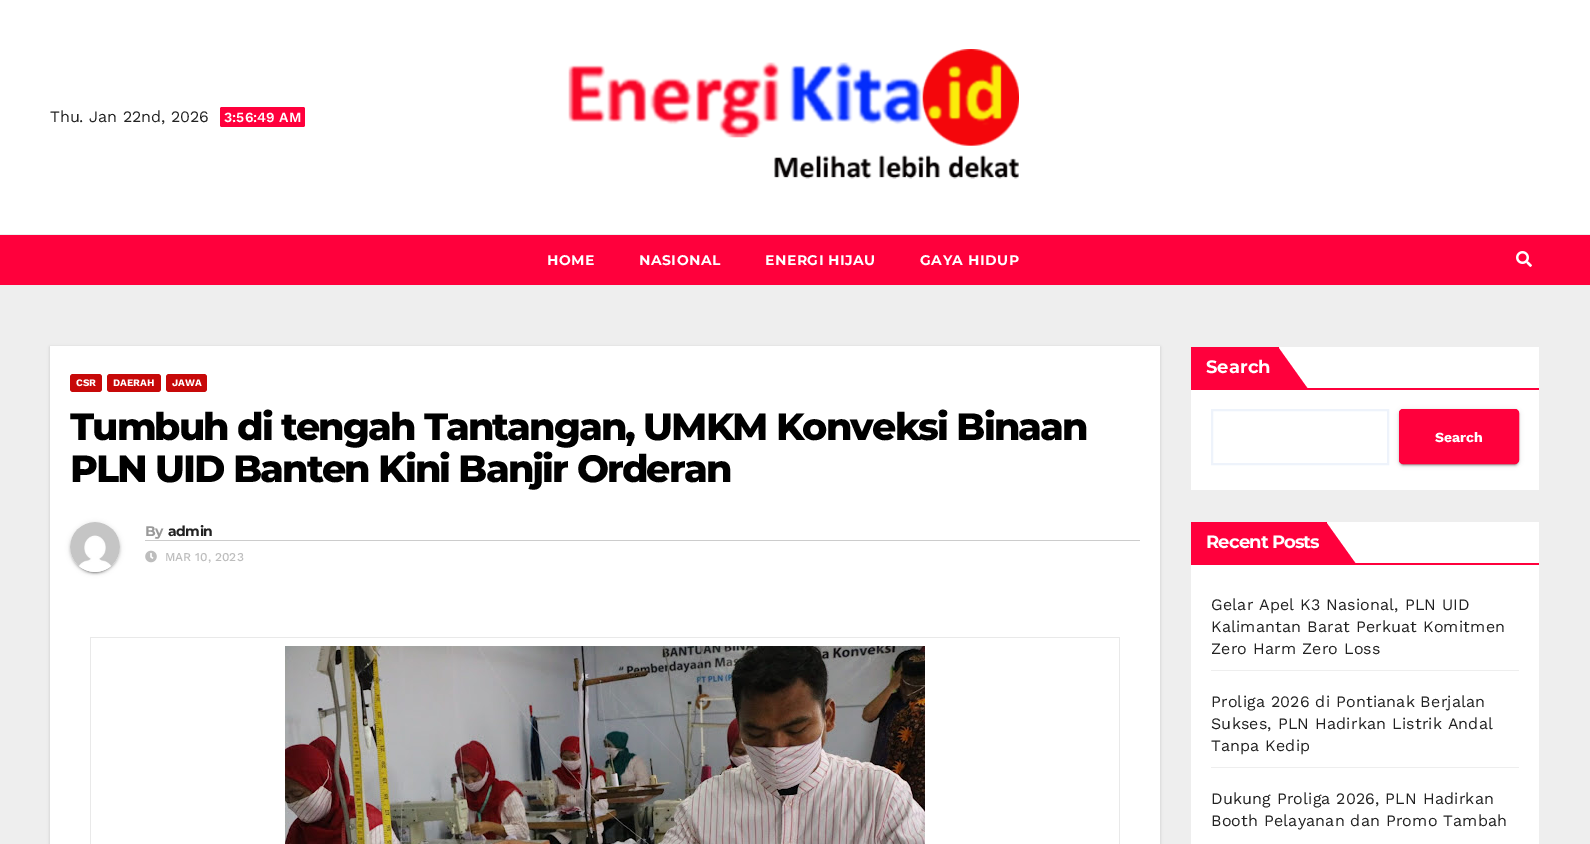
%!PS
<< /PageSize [1590 844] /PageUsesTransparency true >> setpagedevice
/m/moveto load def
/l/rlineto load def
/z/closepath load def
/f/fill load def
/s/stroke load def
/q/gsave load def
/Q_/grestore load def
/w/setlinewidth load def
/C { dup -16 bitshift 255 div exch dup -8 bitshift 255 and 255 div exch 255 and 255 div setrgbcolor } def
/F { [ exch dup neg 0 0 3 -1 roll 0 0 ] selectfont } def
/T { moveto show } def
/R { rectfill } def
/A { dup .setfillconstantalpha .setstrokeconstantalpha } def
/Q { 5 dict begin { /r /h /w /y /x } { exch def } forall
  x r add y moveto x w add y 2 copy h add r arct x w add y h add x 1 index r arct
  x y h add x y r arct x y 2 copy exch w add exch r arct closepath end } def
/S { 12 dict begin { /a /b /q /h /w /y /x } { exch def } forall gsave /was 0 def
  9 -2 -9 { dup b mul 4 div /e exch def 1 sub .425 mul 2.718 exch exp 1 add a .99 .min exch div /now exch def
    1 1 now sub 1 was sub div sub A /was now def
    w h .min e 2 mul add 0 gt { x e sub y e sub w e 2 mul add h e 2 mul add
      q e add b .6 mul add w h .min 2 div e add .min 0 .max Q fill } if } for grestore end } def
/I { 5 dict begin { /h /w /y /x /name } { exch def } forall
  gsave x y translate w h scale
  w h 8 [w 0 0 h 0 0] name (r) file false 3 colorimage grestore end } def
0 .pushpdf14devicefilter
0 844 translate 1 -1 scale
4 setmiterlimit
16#EEEEEE C
0 0 1590 844 R
16#FFFFFF C
0 0 1590 234 R
/WorkSans-Regular 16 F
16#222222 C
(Thu. Jan 22nd, 2026) 50 122 T
16#FF003C C
220 107 85 20 2 Q f
/WorkSans-SemiBold 14 F
16#FFFFFF C
(3:56:49 AM) 224 122 T
(1.rgb) 568 49 451 130 I
16#FF003C C
0 235 1590 50 R
/Montserrat-Bold 14 F
16#FFFFFF C
547 265 m .5 0 (HOME) ashow
639 265 m .5 0 (NASIONAL) ashow
765 265 m .5 0 (ENERGI HIJAU) ashow
920 265 m .5 0 (GAYA HIDUP) ashow
(2.rgb) 1516 251 16 16 I
16#000000 C
50 347 1110 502 0 1.5 .15 S
16#FFFFFF C
50 346 1110 498 R
16#C70909 C
70 374 32 18 3 Q f
/WorkSans-Bold 10 F
16#FFFFFF C
(CSR) 76 386 T
16#C70909 C
107 374 54 18 3 Q f
16#FFFFFF C
(DAERAH) 113 386 T
16#C70909 C
166 374 41 18 3 Q f
16#FFFFFF C
(JAWA) 172 386 T
/Montserrat-ExtraBold 38 F
16#000000 C
70 440 m -1.9 0 (Tumbuh di tengah Tantangan, UMKM Konveksi Binaan) ashow
70 482 m -1.9 0 (PLN UID Banten Kini Banjir Orderan) ashow
70 523 50 50 25 2.5 .12 S
72 527 46 46 23 .5 .2 S
70 524 50 50 25 1 .14 S
(3.rgb) 70 522 50 50 I
16#CCCCCC C
145 540 995 1 R
/Montserrat-Bold 14 F
16#999999 C
145 536 m -.5 0 (By) ashow
16#222222 C
168 536 m -.5 0 (admin) ashow
(4.rgb) 145 550 12 13 I
/WorkSans-Medium 12 F
16#BDBDBD C
(MAR 10, 2023) 165 561 T
16#E9E9E9 C
90 637 1030 1 R
1119 637 1 207 R
90 637 1 207 R
(5.rgb) 285 646 640 198 I
16#FFFFFF C
1191 347 348 143 R
16#FF003C C
1191 347 88 41 R
/Montserrat-Bold 18 F
16#FFFFFF C
(Search) 1206 373 T
16#FF003C C
1278 389 m 0 -42 l 30 42 l z f
1191 388 348 2 R
16#EEF3FB C
2 w
1212 410 176 54 rectstroke
16#000000 C
1399 410 120 55 4 2.5 .12 S
1401 414 116 51 2 .5 .2 S
1399 411 120 55 4 1 .14 S
16#FF003C C
1399.5 409.5 119 54 3.5 Q q f Q_
1 w
s
/WorkSans-Bold 14 F
16#FFFFFF C
(Search) 1435 442 T
1191 522 348 322 R
16#FF003C C
1191 522 136 41 R
/Montserrat-Bold 18 F
16#FFFFFF C
1206 548 m -.9 0 (Recent Posts) ashow
16#FF003C C
1326 564 m 0 -42 l 30 42 l z f
1191 563 348 2 R
16#EEEEEE C
1211 670 308 1 R
/WorkSans-Regular 16 F
16#222222 C
1211 610 m .2 0 (Gelar Apel K3 Nasional, PLN UID) ashow
1211 632 m .2 0 (Kalimantan Barat Perkuat Komitmen) ashow
1211 654 m .2 0 (Zero Harm Zero Loss) ashow
16#EEEEEE C
1211 767 308 1 R
16#222222 C
1211 707 m .2 0 (Proliga 2026 di Pontianak Berjalan) ashow
1211 729 m .2 0 (Sukses, PLN Hadirkan Listrik Andal) ashow
1211 751 m .2 0 (Tanpa Kedip) ashow
1211 804 m .2 0 (Dukung Proliga 2026, PLN Hadirkan) ashow
1211 826 m .2 0 (Booth Pelayanan dan Promo Tambah) ashow
.poppdf14devicefilter showpage
